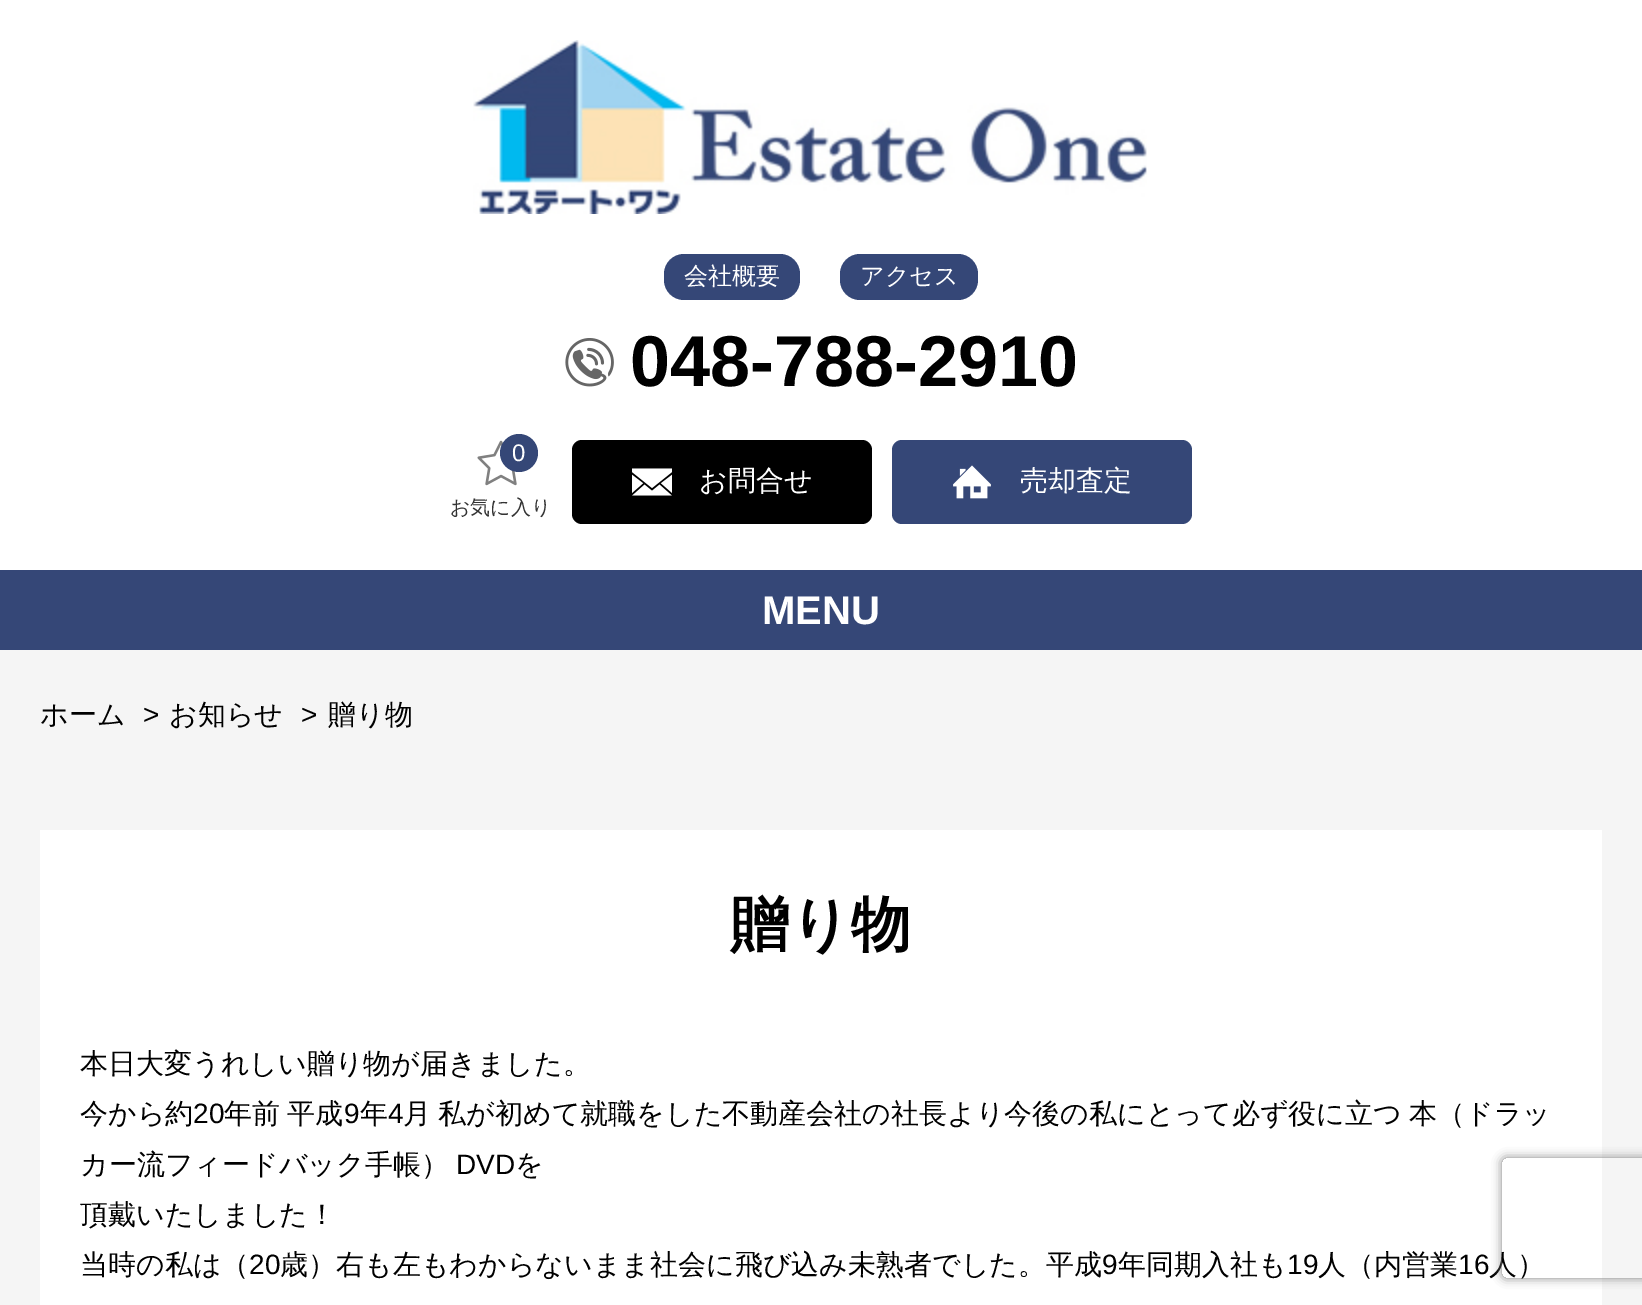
%!PS
<< /PageSize [1642 1305] /PageUsesTransparency true >> setpagedevice
/m/moveto load def
/l/rlineto load def
/c/rcurveto load def
/z/closepath load def
/f/fill load def
/q/gsave load def
/Q_/grestore load def
/C { dup -16 bitshift 255 div exch dup -8 bitshift 255 and 255 div exch 255 and 255 div setrgbcolor } def
/F { [ exch dup neg 0 0 3 -1 roll 0 0 ] selectfont } def
/T { moveto show } def
/R { rectfill } def
/A { dup .setfillconstantalpha .setstrokeconstantalpha } def
/O { newpath 0 360 arc closepath } def
/Q { 5 dict begin { /r /h /w /y /x } { exch def } forall
  x r add y moveto x w add y 2 copy h add r arct x w add y h add x 1 index r arct
  x y h add x y r arct x y 2 copy exch w add exch r arct closepath end } def
/S { 12 dict begin { /a /b /q /h /w /y /x } { exch def } forall gsave /was 0 def
  9 -2 -9 { dup b mul 4 div /e exch def 1 sub .425 mul 2.718 exch exp 1 add a .99 .min exch div /now exch def
    1 1 now sub 1 was sub div sub A /was now def
    w h .min e 2 mul add 0 gt { x e sub y e sub w e 2 mul add h e 2 mul add
      q e add b .6 mul add w h .min 2 div e add .min 0 .max Q fill } if } for grestore end } def
/I { 5 dict begin { /h /w /y /x /name } { exch def } forall
  gsave x y translate w h scale
  w h 8 [w 0 0 h 0 0] name (r) file false 3 colorimage grestore end } def
0 .pushpdf14devicefilter
0 1305 translate 1 -1 scale
4 setmiterlimit
16#FFFFFF C
0 0 1642 1305 R
(1.rgb) 473 40 674 174 I
16#354777 C
664 254 136 46 20 Q f
/WenQuanYiZenHei-Medium 24 F
16#FFFFFF C
(会社概要) 684 284 T
16#354777 C
840 254 138 46 20 Q f
16#FFFFFF C
(アクセス) 860 284 T
(2.rgb) 565 338 49 49 I
/LiberationSans-Bold 72 F
16#000000 C
(048-788-2910) 630 386 T
(3.rgb) 477 440 40 46 I
16#354777 C
519 453 19 O f
/LiberationSans-Regular 24 F
16#FFFFFF C
(0) 512 461 T
/WenQuanYiZenHei-Medium 20 F
16#333333 C
(お気に入り) 450 514 T
16#000000 C
572 440 300 84 10 Q f
(4.rgb) 632 468 40 28 I
/WenQuanYiZenHei-Medium 28 F
16#FFFFFF C
(お問合せ) 699 490 T
16#354777 C
892 440 300 84 10 Q f
(5.rgb) 953 465 38 34 I
16#FFFFFF C
(売却査定) 1020 490 T
16#354777 C
0 570 1642 80 R
/LiberationSans-Bold 40 F
16#FFFFFF C
(MENU) 762 624 T
16#F5F5F5 C
0 650 1642 655 R
/WenQuanYiZenHei-Medium 28 F
16#000000 C
(ホーム) 40 724 T
/LiberationSans-Regular 28 F
(>) 143 724 T
/WenQuanYiZenHei-Medium 28 F
(お知らせ) 169 724 T
/LiberationSans-Regular 28 F
(>) 301 724 T
/WenQuanYiZenHei-Medium 28 F
(贈り物) 328 724 T
16#FFFFFF C
40 830 1562 475 R
/WenQuanYiZenHei-Bold 60 F
16#000000 C
(贈り物) 730 945 T
/WenQuanYiZenHei-Medium 28 F
(本日大変うれしい贈り物が届きました。) 80 1073 T
(今から約) 80 1123 T
/LiberationSans-Regular 28 F
(20) 193 1123 T
/WenQuanYiZenHei-Medium 28 F
224 1123 m -1 0 32 (年前 平成) widthshow
/LiberationSans-Regular 28 F
(9) 344 1123 T
/WenQuanYiZenHei-Medium 28 F
(年) 360 1123 T
/LiberationSans-Regular 28 F
(4) 388 1123 T
/WenQuanYiZenHei-Medium 28 F
403 1123 m -1 0 32 (月 私が初めて就職をした不動産会社の社長より今後の私にとって必ず役に立つ 本（ドラッ) widthshow
(カー流フィードバック手帳）) 80 1174 T
/LiberationSans-Regular 28 F
(DVD) 456 1174 T
/WenQuanYiZenHei-Medium 28 F
(を) 515 1174 T
(頂戴いたしました！) 80 1224 T
(当時の私は（) 80 1274 T
/LiberationSans-Regular 28 F
(20) 249 1274 T
/WenQuanYiZenHei-Medium 28 F
(歳）右も左もわからないまま社会に飛び込み未熟者でした。平成) 280 1274 T
/LiberationSans-Regular 28 F
(9) 1102 1274 T
/WenQuanYiZenHei-Medium 28 F
(年同期入社も) 1118 1274 T
/LiberationSans-Regular 28 F
(19) 1287 1274 T
/WenQuanYiZenHei-Medium 28 F
(人（内営業) 1318 1274 T
/LiberationSans-Regular 28 F
(16) 1458 1274 T
/WenQuanYiZenHei-Medium 28 F
(人）) 1489 1274 T
q
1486 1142 m 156 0 l 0 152 l -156 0 l z 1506 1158 m 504 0 l 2 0 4 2 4 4 c 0 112 l 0 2 -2 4 -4 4 c -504 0 l -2 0 -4 -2 -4 -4 c 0 -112 l 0 -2 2 -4 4 -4 c z eoclip newpath
16#808080 C
1502 1158 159 120 4 5 1 S
Q_
.poppdf14devicefilter showpage
